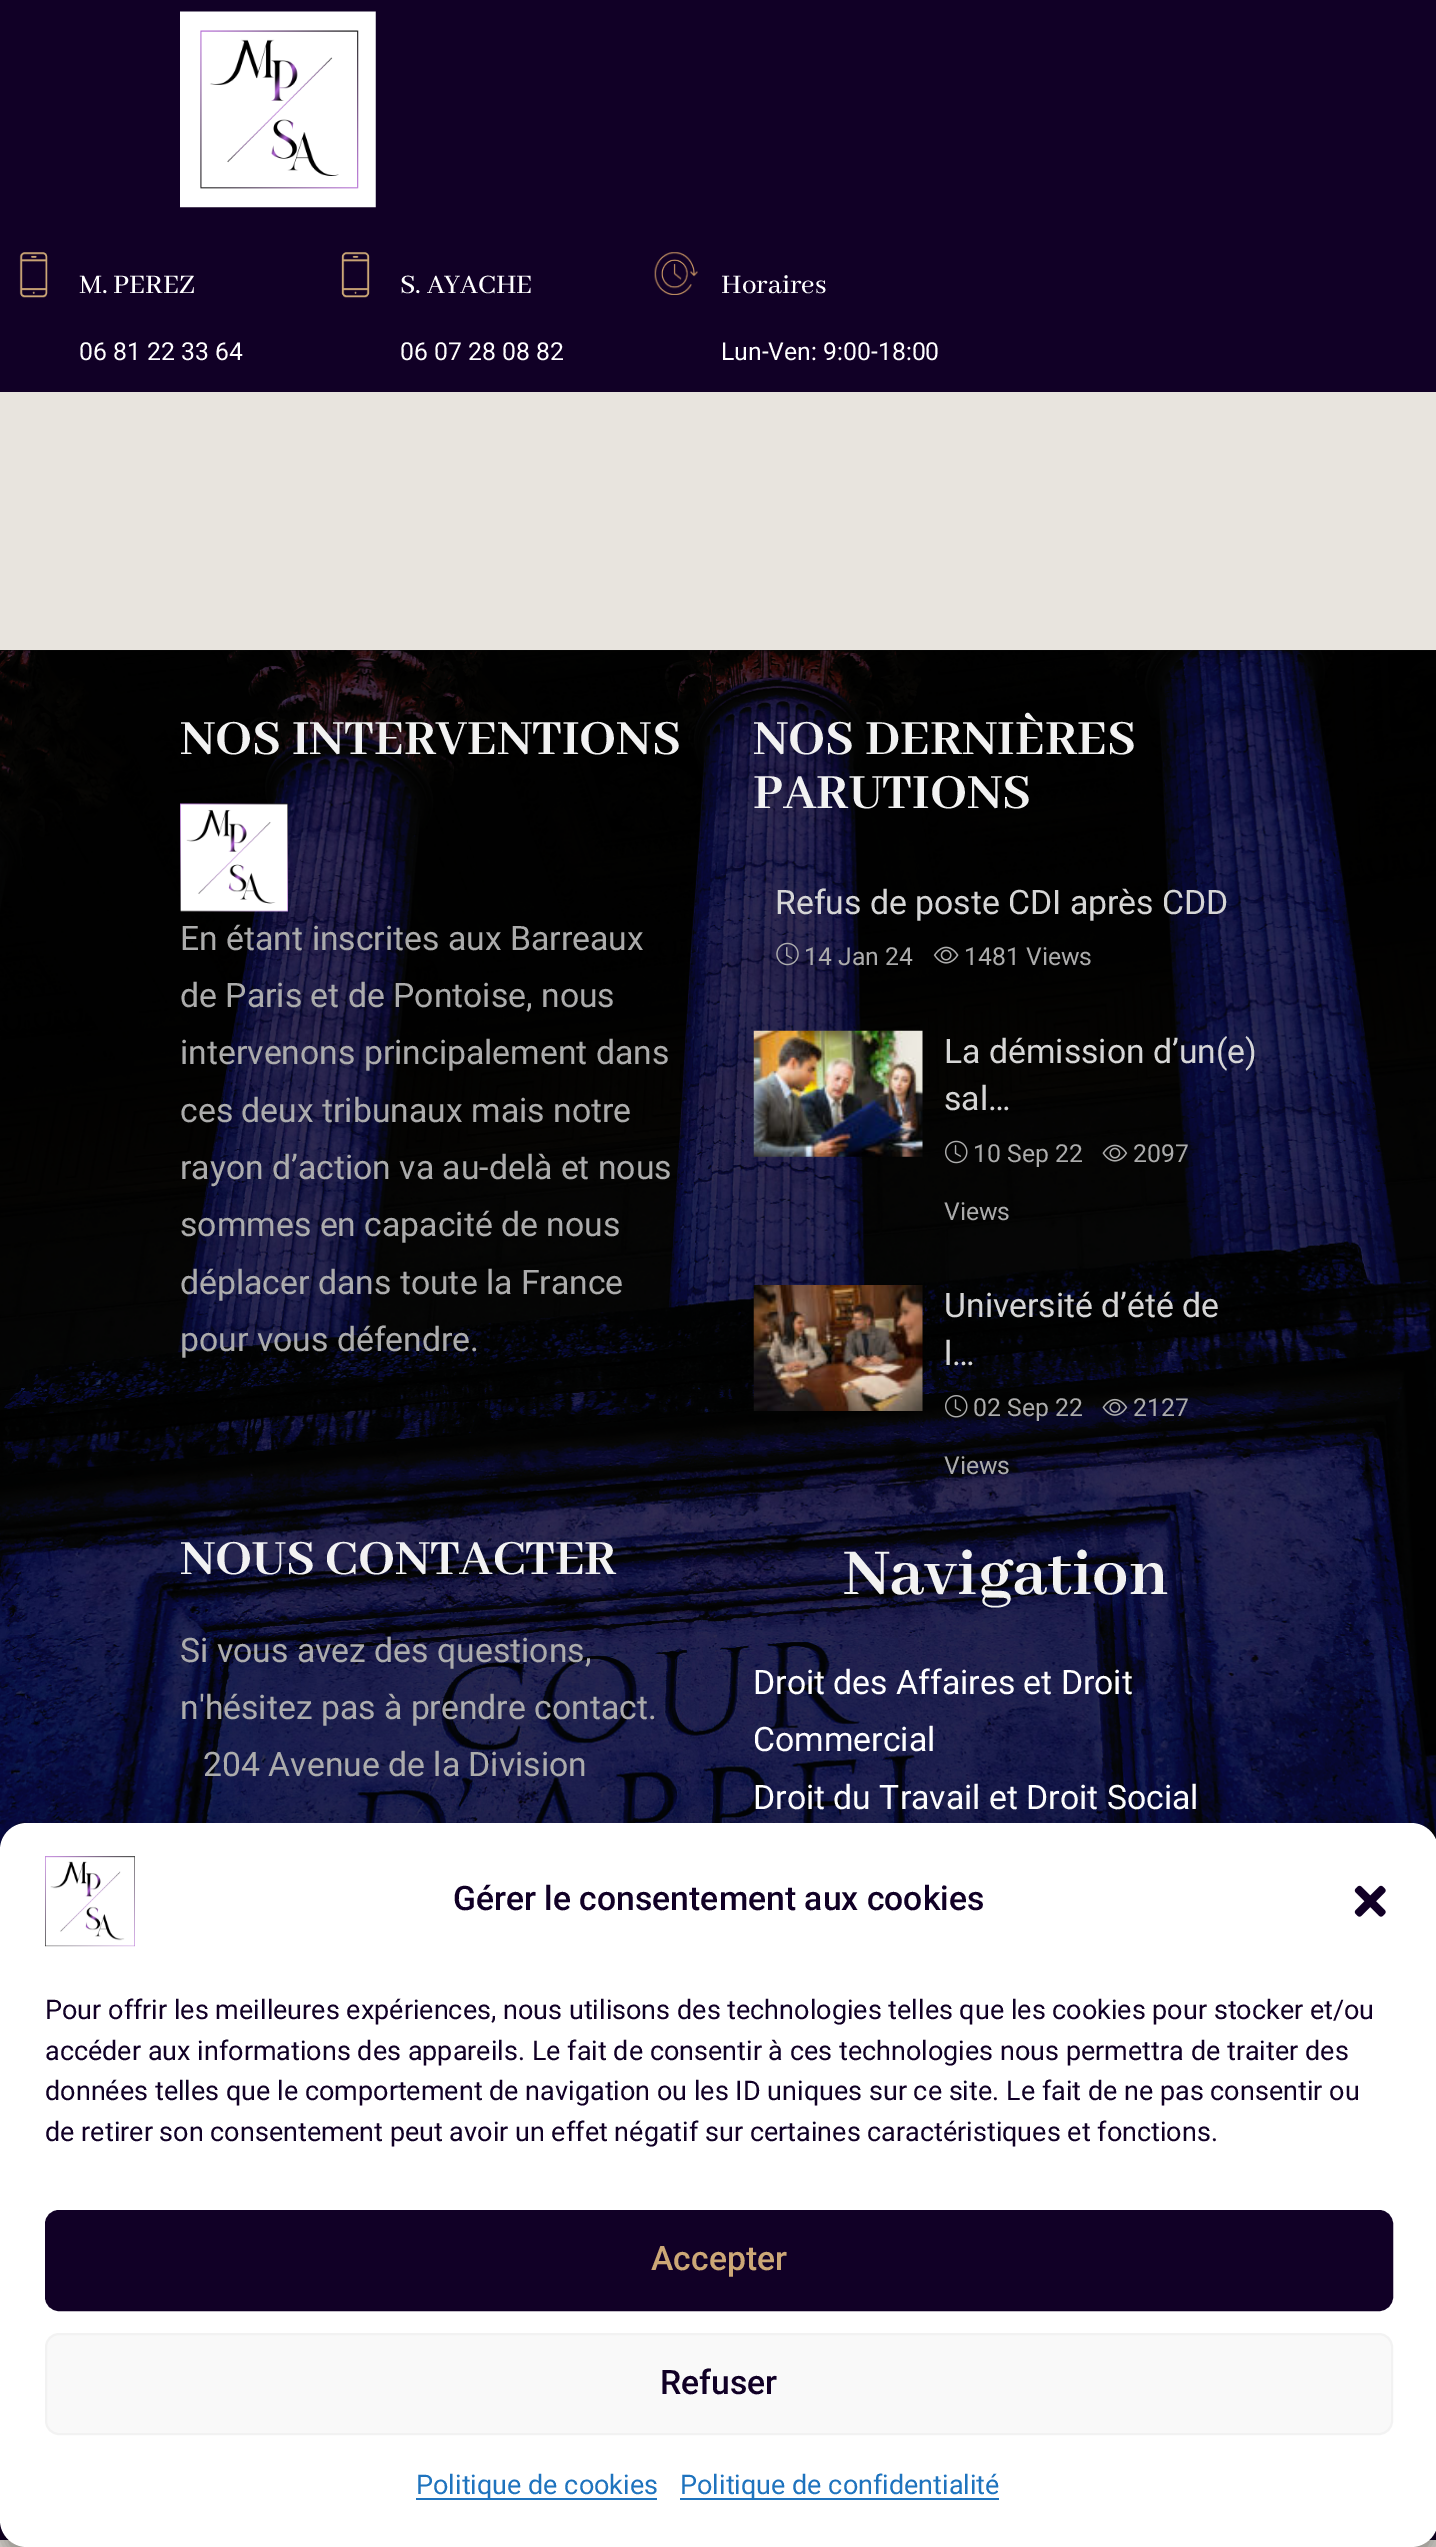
%!PS
<< /PageSize [1436 2547] /PageUsesTransparency true >> setpagedevice
/f/fill load def
/s/stroke load def
/q/gsave load def
/Q_/grestore load def
/w/setlinewidth load def
/C { dup -16 bitshift 255 div exch dup -8 bitshift 255 and 255 div exch 255 and 255 div setrgbcolor } def
/F { [ exch dup neg 0 0 3 -1 roll 0 0 ] selectfont } def
/T { moveto show } def
/R { rectfill } def
/A { dup .setfillconstantalpha .setstrokeconstantalpha } def
/Q { 5 dict begin { /r /h /w /y /x } { exch def } forall
  x r add y moveto x w add y 2 copy h add r arct x w add y h add x 1 index r arct
  x y h add x y r arct x y 2 copy exch w add exch r arct closepath end } def
/S { 12 dict begin { /a /b /q /h /w /y /x } { exch def } forall gsave /was 0 def
  9 -2 -9 { dup b mul 4 div /e exch def 1 sub .425 mul 2.718 exch exp 1 add a .99 .min exch div /now exch def
    1 1 now sub 1 was sub div sub A /was now def
    w h .min e 2 mul add 0 gt { x e sub y e sub w e 2 mul add h e 2 mul add
      q e add b .6 mul add w h .min 2 div e add .min 0 .max Q fill } if } for grestore end } def
/I { 5 dict begin { /h /w /y /x /name } { exch def } forall
  gsave x y translate w h scale
  w h 8 [w 0 0 h 0 0] name (r) file false 3 colorimage grestore end } def
0 .pushpdf14devicefilter
0 2547 translate 1 -1 scale
4 setmiterlimit
16#E8E4DE C
0 0 1436 2547 R
16#110026 C
0 0 1436 392 R
(1.rgb) 180 11 196 197 I
(2.rgb) 19 252 29 46 I
/AbhayaLibreMedium-Medium 29.25 F
16#FFFFFF C
(M. PEREZ) 79 293 T
/Roboto-Regular 24.75 F
(06 81 22 33 64) 79 360 T
(3.rgb) 341 252 29 46 I
/AbhayaLibreMedium-Medium 29.25 F
(S. AYACHE) 400 293 T
/Roboto-Regular 24.75 F
(06 07 28 08 82) 400 360 T
(4.rgb) 654 252 44 43 I
/AbhayaLibreMedium-Medium 29.25 F
(Horaires) 721 293 T
/Roboto-Regular 24.75 F
(Lun-Ven: 9:00-18:00) 721 360 T
16#0D0D0D C
0 650 1436 1 R
(5.rgb) 0 650 1436 1200 I
/AbhayaLibre-Bold 54 F
16#F2F2F2 C
(NOS INTERVENTIONS) 180 754 T
(6.rgb) 180 803 108 109 I
/Roboto-Regular 33.75 F
16#ACACAC C
(En étant inscrites aux Barreaux) 180 950 T
(de Paris et de Pontoise, nous) 180 1007 T
(intervenons principalement dans) 180 1064 T
(ces deux tribunaux mais notre) 180 1122 T
(rayon d’action va au-delà et nous) 180 1179 T
(sommes en capacité de nous) 180 1236 T
(déplacer dans toute la France) 180 1294 T
(pour vous défendre.) 180 1351 T
/AbhayaLibre-Bold 54 F
16#F2F2F2 C
(NOS DERNIÈRES) 753 754 T
(PARUTIONS) 753 808 T
/Roboto-Regular 33.75 F
16#D6D6D6 C
(Refus de poste CDI après CDD) 775 914 T
(7.rgb) 776 942 23 24 I
/Roboto-Regular 24.75 F
16#ACACAC C
(14 Jan 24) 804 965 T
(8.rgb) 933 946 26 18 I
(1481 Views) 964 965 T
(9.rgb) 753 1030 170 127 I
/Roboto-Regular 33.75 F
16#D6D6D6 C
(La démission d’un\(e\)) 944 1063 T
(sal…) 944 1110 T
(10.rgb) 945 1140 23 24 I
(11.rgb) 1102 1144 26 18 I
/Roboto-Regular 24.75 F
16#ACACAC C
(2097) 1133 1162 T
(Views) 944 1220 T
(10 Sep 22) 973 1162 T
(12.rgb) 753 1285 170 126 I
/Roboto-Regular 33.75 F
16#D6D6D6 C
(Université d’été de) 944 1317 T
(l…) 944 1365 T
(13.rgb) 945 1395 23 23 I
(14.rgb) 1102 1398 26 18 I
/Roboto-Regular 24.75 F
16#ACACAC C
(2127) 1133 1416 T
(Views) 944 1474 T
(02 Sep 22) 973 1416 T
/AbhayaLibre-Bold 54 F
16#F2F2F2 C
(NOUS CONTACTER) 180 1574 T
/Roboto-Regular 33.75 F
16#ACACAC C
(Si vous avez des questions,) 180 1662 T
(n'hésitez pas à prendre contact.) 180 1719 T
(204 Avenue de la Division) 203 1776 T
/AbhayaLibre-Bold 72 F
16#F2F2F2 C
(Navigation) 843 1594 T
/Roboto-Regular 33.75 F
16#FFFFFF C
(Droit des Affaires et Droit) 753 1694 T
(Commercial) 753 1751 T
(Droit du Travail et Droit Social) 753 1809 T
16#110026 C
0 2520 1436 20 R
16#000000 C
0 1836 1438 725 27 7 .23 S
0 1845 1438 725 27 22.5 .19 S
16#FFFFFF C
0 1823 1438 724 27 Q f
(15.rgb) 45 1856 90 91 I
/Roboto-Medium 33.75 F
16#110026 C
(Gérer le consentement aux cookies) 453 1910 T
(16.rgb) 1354 1885 32 32 I
/Roboto-Regular 27 F
(Pour offrir les meilleures expériences, nous utilisons des technologies telles que les cookies pour stocker et/ou) 45 2019 T
(accéder aux informations des appareils. Le fait de consentir à ces technologies nous permettra de traiter des) 45 2060 T
(données telles que le comportement de navigation ou les ID uniques sur ce site. Le fait de ne pas consentir ou) 45 2100 T
(de retirer son consentement peut avoir un effet négatif sur certaines caractéristiques et fonctions.) 45 2141 T
46 2211 1346 99 13 Q q f Q_
2 w
s
/Roboto-Medium 33.75 F
16#CCA776 C
(Accepter) 651 2270 T
16#F9F9F9 C
46 2334 1346 100 13 Q q f Q_
16#F2F2F2 C
s
16#110026 C
(Refuser) 660 2394 T
16#1E73BE C
416 2498 241 2 R
/Roboto-Regular 27 F
(Politique de cookies) 416 2494 T
680 2498 319 2 R
(Politique de confidentialité) 680 2494 T
.poppdf14devicefilter showpage
